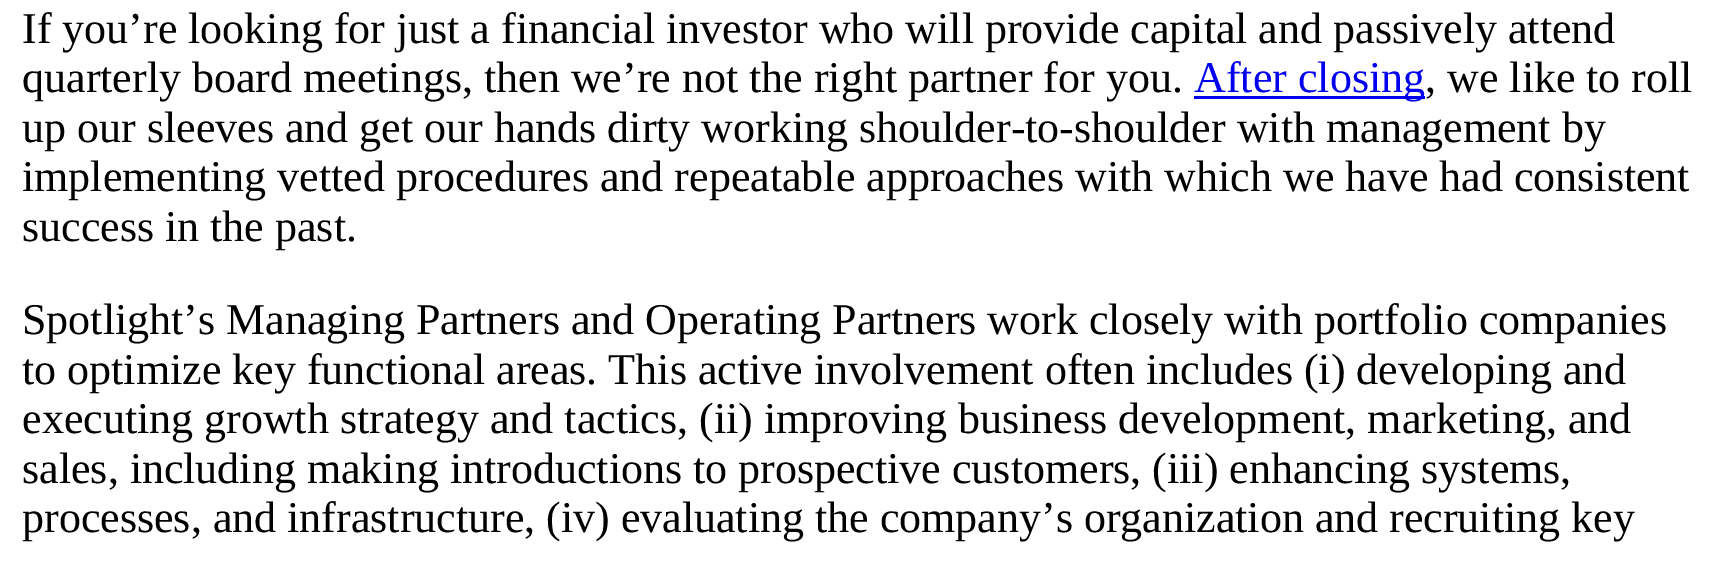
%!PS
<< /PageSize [1724 572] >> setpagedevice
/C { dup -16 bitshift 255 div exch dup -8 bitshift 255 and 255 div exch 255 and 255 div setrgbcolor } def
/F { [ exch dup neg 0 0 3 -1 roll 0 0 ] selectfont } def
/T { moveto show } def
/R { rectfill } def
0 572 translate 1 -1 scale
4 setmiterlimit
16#FFFFFF C
0 0 1724 572 R
/LiberationSerif-Regular 44 F
16#000000 C
(If you’re looking for just a financial investor who will provide capital and passively attend) 22 43 T
(quarterly board meetings, then we’re not the right partner for you.) 22 92 T
16#0000EE C
1194 96 231 3 R
(After closing) 1194 92 T
16#000000 C
(, we like to roll) 1425 92 T
(up our sleeves and get our hands dirty working shoulder-to-shoulder with management by) 22 142 T
(implementing vetted procedures and repeatable approaches with which we have had consistent) 22 191 T
(success in the past.) 22 241 T
(Spotlight’s Managing Partners and Operating Partners work closely with portfolio companies) 22 334 T
(to optimize key functional areas. This active involvement often includes \(i\) developing and) 22 384 T
(executing growth strategy and tactics, \(ii\) improving business development, marketing, and) 22 433 T
(sales, including making introductions to prospective customers, \(iii\) enhancing systems,) 22 483 T
(processes, and infrastructure, \(iv\) evaluating the company’s organization and recruiting key) 22 532 T
showpage
